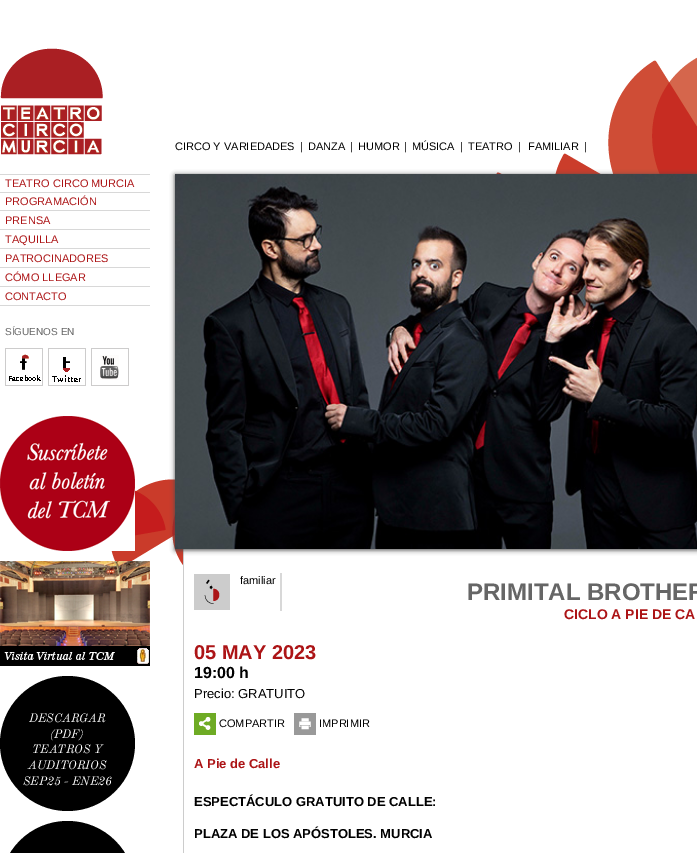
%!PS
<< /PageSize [697 853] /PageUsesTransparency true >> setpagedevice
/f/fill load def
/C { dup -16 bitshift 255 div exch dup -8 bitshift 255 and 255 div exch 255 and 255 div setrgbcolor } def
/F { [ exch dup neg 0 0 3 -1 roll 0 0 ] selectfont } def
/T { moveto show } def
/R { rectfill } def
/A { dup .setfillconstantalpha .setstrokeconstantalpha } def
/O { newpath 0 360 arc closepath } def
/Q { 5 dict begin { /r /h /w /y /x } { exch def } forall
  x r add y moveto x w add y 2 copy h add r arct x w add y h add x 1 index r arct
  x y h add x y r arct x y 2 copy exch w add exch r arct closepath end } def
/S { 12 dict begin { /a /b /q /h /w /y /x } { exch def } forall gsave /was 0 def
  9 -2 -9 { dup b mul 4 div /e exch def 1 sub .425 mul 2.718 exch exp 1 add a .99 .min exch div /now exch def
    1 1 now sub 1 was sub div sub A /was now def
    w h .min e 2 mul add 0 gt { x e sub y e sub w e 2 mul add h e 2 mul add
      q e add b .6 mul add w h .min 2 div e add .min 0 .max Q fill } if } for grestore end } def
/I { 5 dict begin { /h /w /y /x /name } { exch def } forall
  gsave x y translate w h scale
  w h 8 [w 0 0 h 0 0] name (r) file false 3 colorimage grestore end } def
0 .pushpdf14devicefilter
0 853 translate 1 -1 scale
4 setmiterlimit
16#FFFFFF C
0 0 697 853 R
(1.rgb) 111 57 586 508 I
(2.rgb) 0 48 103 107 I
/LiberationSans-Regular 11 F
16#000000 C
(CIRCO Y VARIEDADES) 175 150 T
(|) 300 150 T
(DANZA) 308 150 T
(|) 350 150 T
(HUMOR) 358 150 T
(|) 404 150 T
(MÚSICA) 412 150 T
(|) 460 150 T
(TEATRO) 468 150 T
(|) 518 150 T
(FAMILIAR) 528 150 T
(|) 584 150 T
16#D8D8D8 C
0 174 150 1 R
16#AC1416 C
(TEATRO CIRCO MURCIA) 5 187 T
16#D8D8D8 C
0 192 150 1 R
16#AC1416 C
(PROGRAMACIÓN) 5 205 T
16#D8D8D8 C
0 210 150 1 R
16#AC1416 C
(PRENSA) 5 224 T
16#D8D8D8 C
0 229 150 1 R
16#AC1416 C
(TAQUILLA) 5 243 T
16#D8D8D8 C
0 248 150 1 R
16#AC1416 C
(PATROCINADORES) 5 262 T
16#D8D8D8 C
0 267 150 1 R
16#AC1416 C
(CÓMO LLEGAR) 5 281 T
16#D8D8D8 C
0 286 150 1 R
16#AC1416 C
(CONTACTO) 5 300 T
16#D8D8D8 C
0 305 150 1 R
/LiberationSans-Regular 10 F
16#666666 C
(SÍGUENOS EN) 5 335 T
(3.rgb) 5 348 38 38 I
(4.rgb) 48 348 38 38 I
(5.rgb) 91 348 38 38 I
(6.rgb) 0 416 135 135 I
(7.rgb) 0 561 150 105 I
16#000000 C
67.5 743.5 67.5 O f
/OldStandardTT-Italic 12 F
16#FFFFFF C
(DESCARGAR) 29 722 T
(\(PDF\)) 50 738 T
(TEATROS Y) 32 753 T
(AUDITORIOS) 28 769 T
(SEP25 - ENE26) 23 785 T
16#000000 C
0 821 135 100 67.5 Q f
16#FFFFFF C
184 549 94 16 R
16#CCCCCC C
183 549 1 304 R
16#4A4A4A C
175 175 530 375 0 2.5 1 S
(8.rgb) 175 174 522 375 I
(9.rgb) 194 574 36 36 I
16#D8D8D8 C
280 573 2 38 R
/LiberationSans-Regular 11 F
16#000000 C
(familiar) 240 584 T
/LiberationSans-Bold 24 F
16#666666 C
(PRIMITAL BROTHER) 467 600 T
/LiberationSans-Bold 14 F
16#AC1416 C
(CICLO A PIE DE CA) 564 619 T
/LiberationSans-Bold 20 F
(05 MAY 2023) 194 659 T
/LiberationSans-Bold 16 F
16#000000 C
(19:00 h) 194 678 T
/LiberationSans-Regular 13 F
(Precio: GRATUITO) 194 698 T
(10.rgb) 194 713 22 22 I
/LiberationSans-Regular 11 F
(COMPARTIR) 219 727 T
(11.rgb) 294 713 22 22 I
(IMPRIMIR) 319 727 T
/LiberationSans-Bold 13 F
16#AC1416 C
(A Pie de Calle) 194 768 T
16#000000 C
(ESPECTÁCULO GRATUITO DE CALLE:) 194 806 T
(PLAZA DE LOS APÓSTOLES. MURCIA) 194 838 T
.poppdf14devicefilter showpage
